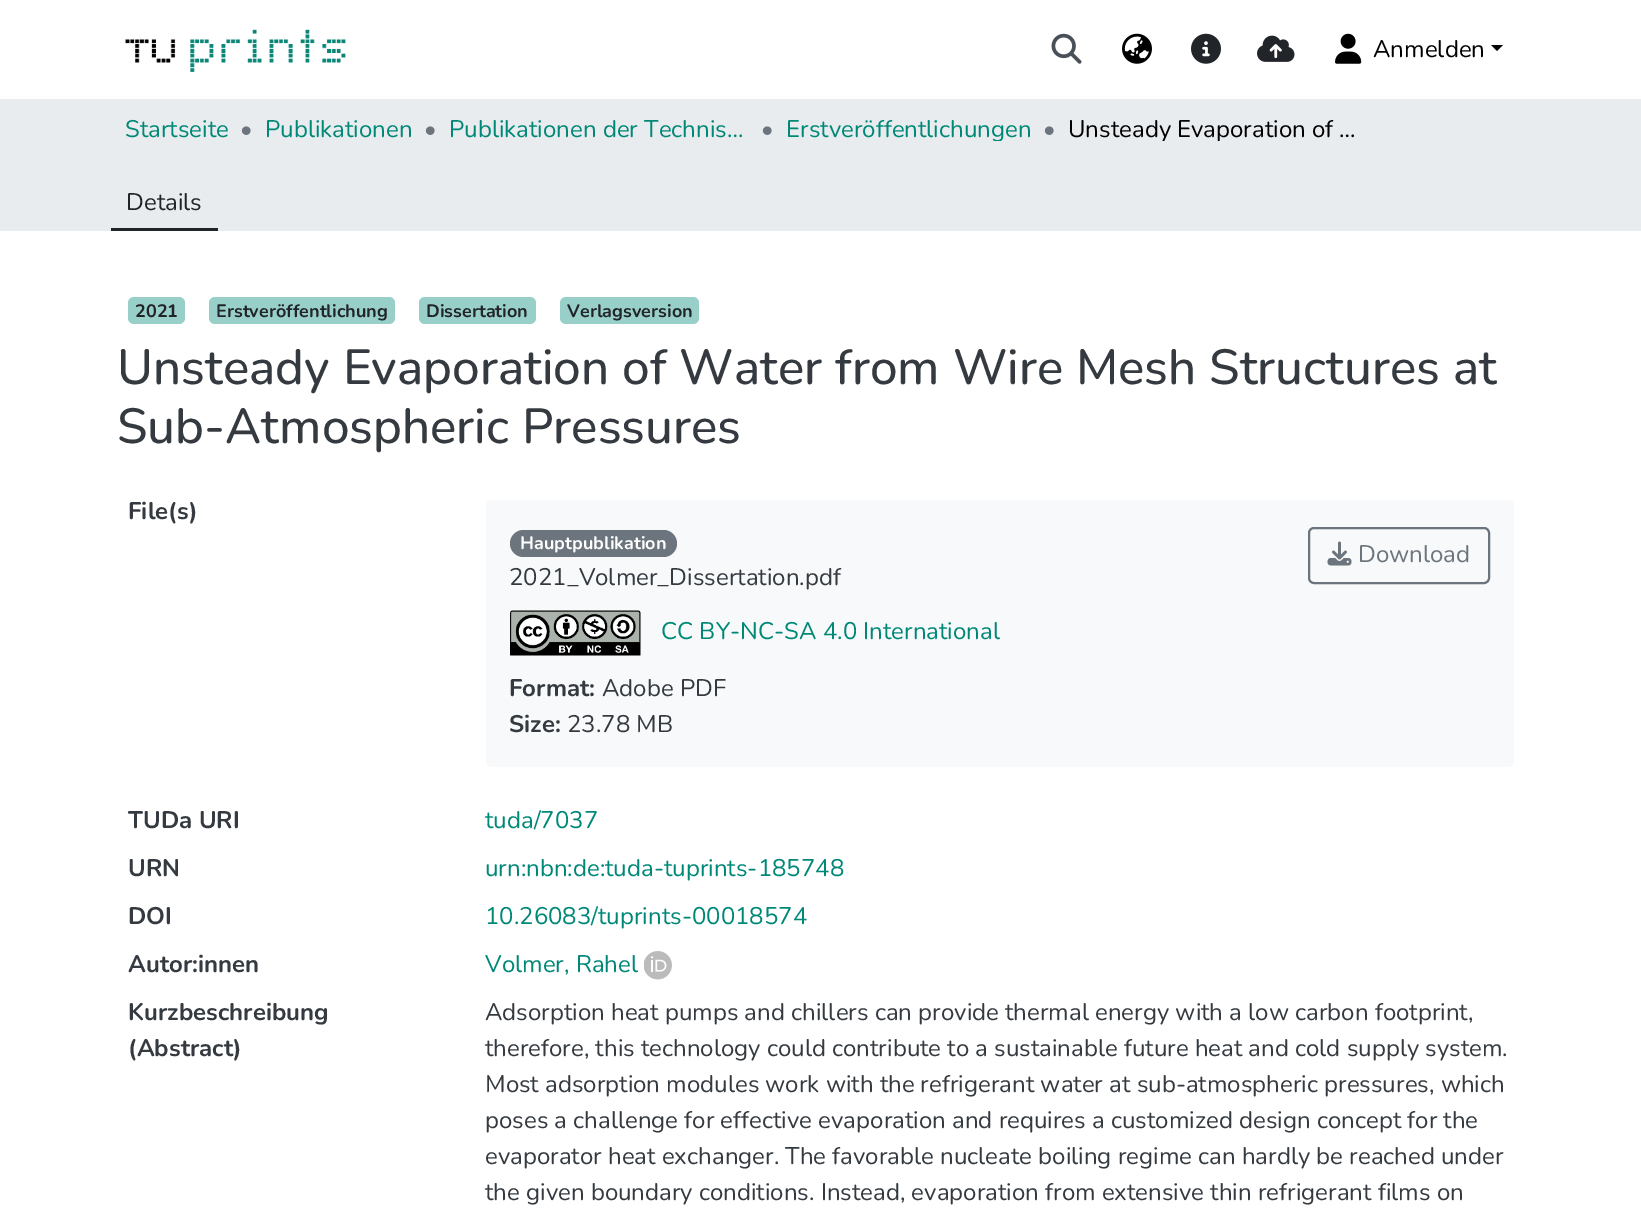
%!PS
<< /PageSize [1641 1222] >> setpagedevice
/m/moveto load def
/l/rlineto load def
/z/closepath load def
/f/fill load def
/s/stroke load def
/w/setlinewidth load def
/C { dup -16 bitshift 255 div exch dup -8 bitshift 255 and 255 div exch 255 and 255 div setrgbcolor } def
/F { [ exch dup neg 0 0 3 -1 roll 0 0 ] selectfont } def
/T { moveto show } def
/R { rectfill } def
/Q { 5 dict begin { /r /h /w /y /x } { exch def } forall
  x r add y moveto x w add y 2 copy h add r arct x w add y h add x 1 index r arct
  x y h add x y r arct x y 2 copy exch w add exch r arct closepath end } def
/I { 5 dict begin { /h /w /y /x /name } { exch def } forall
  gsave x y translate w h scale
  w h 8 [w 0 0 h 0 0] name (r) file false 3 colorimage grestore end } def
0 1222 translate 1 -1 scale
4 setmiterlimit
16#FFFFFF C
0 0 1641 1222 R
(1.rgb) 125 29 221 43 I
(2.rgb) 1051 33 31 31 I
(3.rgb) 1122 33 30 31 I
(4.rgb) 1191 33 30 31 I
(5.rgb) 1257 35 38 27 I
(6.rgb) 1335 33 27 31 I
/Nunito-Regular 24 F
16#000000 C
(Anmelden) 1373 57 T
1491 45 m 12 0 l -6 6 l z f
16#E9ECEF C
0 99 1641 42 R
16#008877 C
(Startseite) 125 137 T
16#6C757D C
(•) 240 137 T
16#008877 C
(Publikationen) 265 137 T
16#6C757D C
(•) 424 137 T
16#008877 C
(Publikationen der Technis…) 449 137 T
16#6C757D C
(•) 761 137 T
16#008877 C
(Erstveröffentlichungen) 786 137 T
16#6C757D C
(•) 1043 137 T
16#000000 C
(Unsteady Evaporation of …) 1068 137 T
16#E9ECEF C
0 141 1641 90 R
16#212529 C
111 228 107 3 R
(Details) 126 210 T
16#99CFC9 C
128 297 57 27 6 Q f
/Nunito-Bold 18 F
16#212529 C
(2021) 135 317 T
16#99CFC9 C
209 297 186 27 6 Q f
16#212529 C
(Erstveröffentlichung) 216 317 T
16#99CFC9 C
419 297 117 27 6 Q f
16#212529 C
(Dissertation) 426 317 T
16#99CFC9 C
560 297 139 27 6 Q f
16#212529 C
(Verlagsversion) 567 317 T
/Nunito-Medium 49.3 F
16#343A40 C
(Unsteady Evaporation of Water from Wire Mesh Structures at) 117 384 T
(Sub-Atmospheric Pressures) 117 443 T
/Nunito-Bold 24 F
(File\(s\)) 128 519 T
16#F8F9FA C
486 500 1028 267 6 Q f
16#6C757D C
510 530 167 27 13.5 Q f
/Nunito-Bold 18 F
16#FFFFFF C
(Hauptpublikation) 520 549 T
/Nunito-Regular 24 F
16#343A40 C
(2021_Volmer_Dissertation.pdf) 509 585 T
(7.rgb) 510 610 131 46 I
16#008877 C
(CC BY-NC-SA 4.0 International) 661 639 T
/Nunito-Bold 24 F
16#343A40 C
(Format:) 509 696 T
/Nunito-Regular 24 F
(Adobe PDF) 602 696 T
/Nunito-Bold 24 F
(Size:) 509 732 T
/Nunito-Regular 24 F
(23.78 MB) 567 732 T
16#6C757D C
2 w
1309 528 180 55 5 Q s
(8.rgb) 1327 541 25 25 I
(Download) 1358 562 T
/Nunito-Bold 24 F
16#343A40 C
(TUDa URI) 128 828 T
/Nunito-Regular 24 F
16#008877 C
(tuda/7037) 485 828 T
/Nunito-Bold 24 F
16#343A40 C
(URN) 128 876 T
/Nunito-Regular 24 F
16#008877 C
(urn:nbn:de:tuda-tuprints-185748) 485 876 T
/Nunito-Bold 24 F
16#343A40 C
(DOI) 128 924 T
/Nunito-Regular 24 F
16#008877 C
(10.26083/tuprints-00018574) 485 924 T
/Nunito-Bold 24 F
16#343A40 C
(Autor:innen) 128 972 T
/Nunito-Regular 24 F
16#008877 C
(Volmer, Rahel) 485 972 T
(9.rgb) 644 951 28 29 I
/Nunito-Bold 24 F
16#343A40 C
(Kurzbeschreibung) 128 1020 T
(\(Abstract\)) 128 1056 T
/Nunito-Regular 24 F
(Adsorption heat pumps and chillers can provide thermal energy with a low carbon footprint,) 485 1020 T
(therefore, this technology could contribute to a sustainable future heat and cold supply system.) 485 1056 T
(Most adsorption modules work with the refrigerant water at sub-atmospheric pressures, which) 485 1092 T
(poses a challenge for effective evaporation and requires a customized design concept for the) 485 1128 T
(evaporator heat exchanger. The favorable nucleate boiling regime can hardly be reached under) 485 1164 T
(the given boundary conditions. Instead, evaporation from extensive thin refrigerant films on) 485 1200 T
showpage
